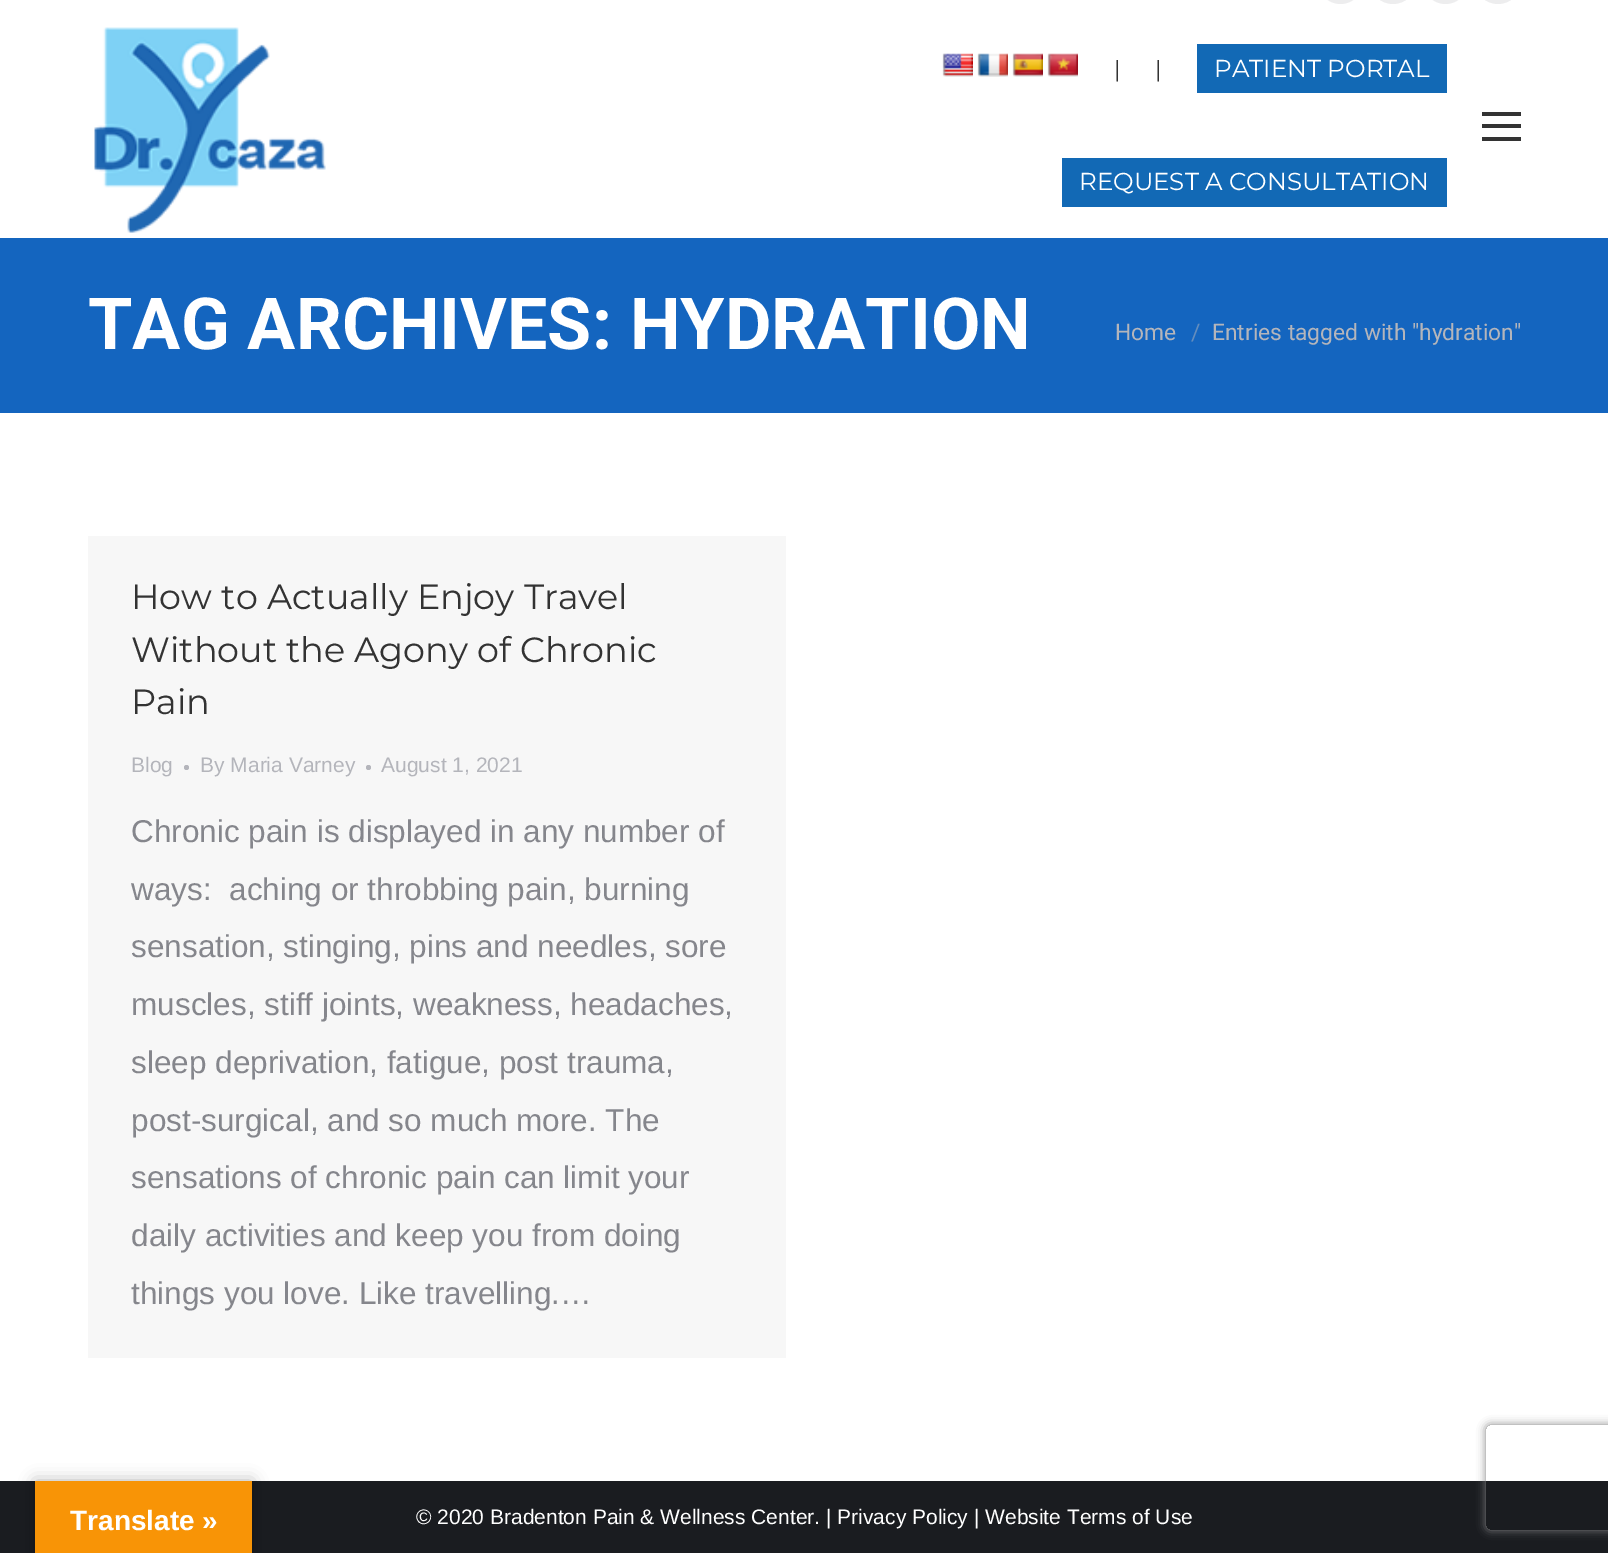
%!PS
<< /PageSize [1608 1553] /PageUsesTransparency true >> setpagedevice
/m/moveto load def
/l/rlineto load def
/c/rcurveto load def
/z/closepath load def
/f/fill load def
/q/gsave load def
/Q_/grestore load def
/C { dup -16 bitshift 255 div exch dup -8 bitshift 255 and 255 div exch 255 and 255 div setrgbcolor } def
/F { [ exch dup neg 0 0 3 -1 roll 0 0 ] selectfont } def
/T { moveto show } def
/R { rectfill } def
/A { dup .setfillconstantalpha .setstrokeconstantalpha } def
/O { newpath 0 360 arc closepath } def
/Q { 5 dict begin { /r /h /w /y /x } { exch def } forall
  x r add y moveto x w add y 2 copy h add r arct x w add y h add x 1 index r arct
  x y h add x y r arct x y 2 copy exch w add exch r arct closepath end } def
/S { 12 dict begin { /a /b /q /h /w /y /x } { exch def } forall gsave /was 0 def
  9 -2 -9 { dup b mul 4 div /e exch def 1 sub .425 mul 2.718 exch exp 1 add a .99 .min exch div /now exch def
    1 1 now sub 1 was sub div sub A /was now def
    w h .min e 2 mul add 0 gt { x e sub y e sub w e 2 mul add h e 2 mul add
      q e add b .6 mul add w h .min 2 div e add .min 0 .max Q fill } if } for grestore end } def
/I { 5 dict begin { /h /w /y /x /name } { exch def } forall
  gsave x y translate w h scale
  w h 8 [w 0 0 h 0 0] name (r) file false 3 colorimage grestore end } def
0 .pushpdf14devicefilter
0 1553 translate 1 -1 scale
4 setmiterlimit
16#FFFFFF C
0 0 1608 1553 R
16#EDEDEE C
1318 -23 45 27 22.5 Q f
1370 -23 46 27 23 Q f
1423 -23 45 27 22.5 Q f
1475 -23 46 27 23 Q f
(1.rgb) 94 27 232 206 I
(2.rgb) 942 53 31 24 I
(3.rgb) 977 53 31 24 I
(4.rgb) 1012 53 31 24 I
(5.rgb) 1047 53 31 24 I
/Montserrat-Regular 22.75 F
16#333333 C
(|) 1114 77 T
(|) 1155 77 T
16#1269B5 C
1197 44 250 49 R
/Montserrat-Regular 24.5 F
16#FFFFFF C
(PATIENT PORTAL) 1214 77 T
16#1269B5 C
1062 158 385 49 R
16#FFFFFF C
(REQUEST A CONSULTATION) 1079 190 T
16#333333 C
1482 124 39 4 R
1482 112 39 4 R
1482 137 39 4 R
16#1465BF C
0 238 1608 175 R
/Roboto-Bold 71.75 F
16#FFFFFF C
(TAG ARCHIVES: HYDRATION) 88 349 T
/Roboto-Regular 22.75 F
16#B4B5BB C
(Home) 1115 340 T
16#648DBD C
(/) 1191 340 T
16#B4B5BB C
(Entries tagged with "hydration") 1212 340 T
16#F7F7F7 C
88 536 698 822 R
/Montserrat-Regular 35 F
16#333333 C
(How to Actually Enjoy Travel) 131 609 T
(Without the Agony of Chronic) 131 662 T
(Pain) 131 714 T
/LiberationSans-Regular 21 F
16#B4B5BB C
(Blog) 131 772 T
186.5 767.5 2.5 O f
(By Maria Varney) 200 772 T
368.5 767.5 2.5 O f
(August 1, 2021) 381 772 T
/LiberationSans-Regular 31.5 F
16#85868C C
(Chronic pain is displayed in any number of) 131 842 T
(ways:  aching or throbbing pain, burning) 131 900 T
(sensation, stinging, pins and needles, sore) 131 957 T
(muscles, stiff joints, weakness, headaches,) 131 1015 T
(sleep deprivation, fatigue, post trauma,) 131 1073 T
(post-surgical, and so much more. The) 131 1131 T
(sensations of chronic pain can limit your) 131 1188 T
(daily activities and keep you from doing) 131 1246 T
(things you love. Like travelling.…) 131 1304 T
16#1A1C20 C
0 1481 1608 72 R
/LiberationSans-Regular 21 F
16#FFFFFF C
(© 2020 Bradenton Pain & Wellness Center. | Privacy Policy | Website Terms of Use) 416 1524 T
q
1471 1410 m 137 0 l 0 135 l -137 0 l z 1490 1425 m 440 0 l 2 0 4 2 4 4 c 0 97 l 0 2 -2 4 -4 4 c -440 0 l -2 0 -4 -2 -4 -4 c 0 -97 l 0 -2 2 -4 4 -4 c z eoclip newpath
16#808080 C
1486 1425 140 105 4 4.5 1 S
Q_
16#000000 C
35 1481 217 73 0 8 .3 S
16#F89406 C
35 1481 217 72 R
/LiberationSans-Bold 28 F
16#FFFFFF C
(Translate ») 70 1530 T
.poppdf14devicefilter showpage
